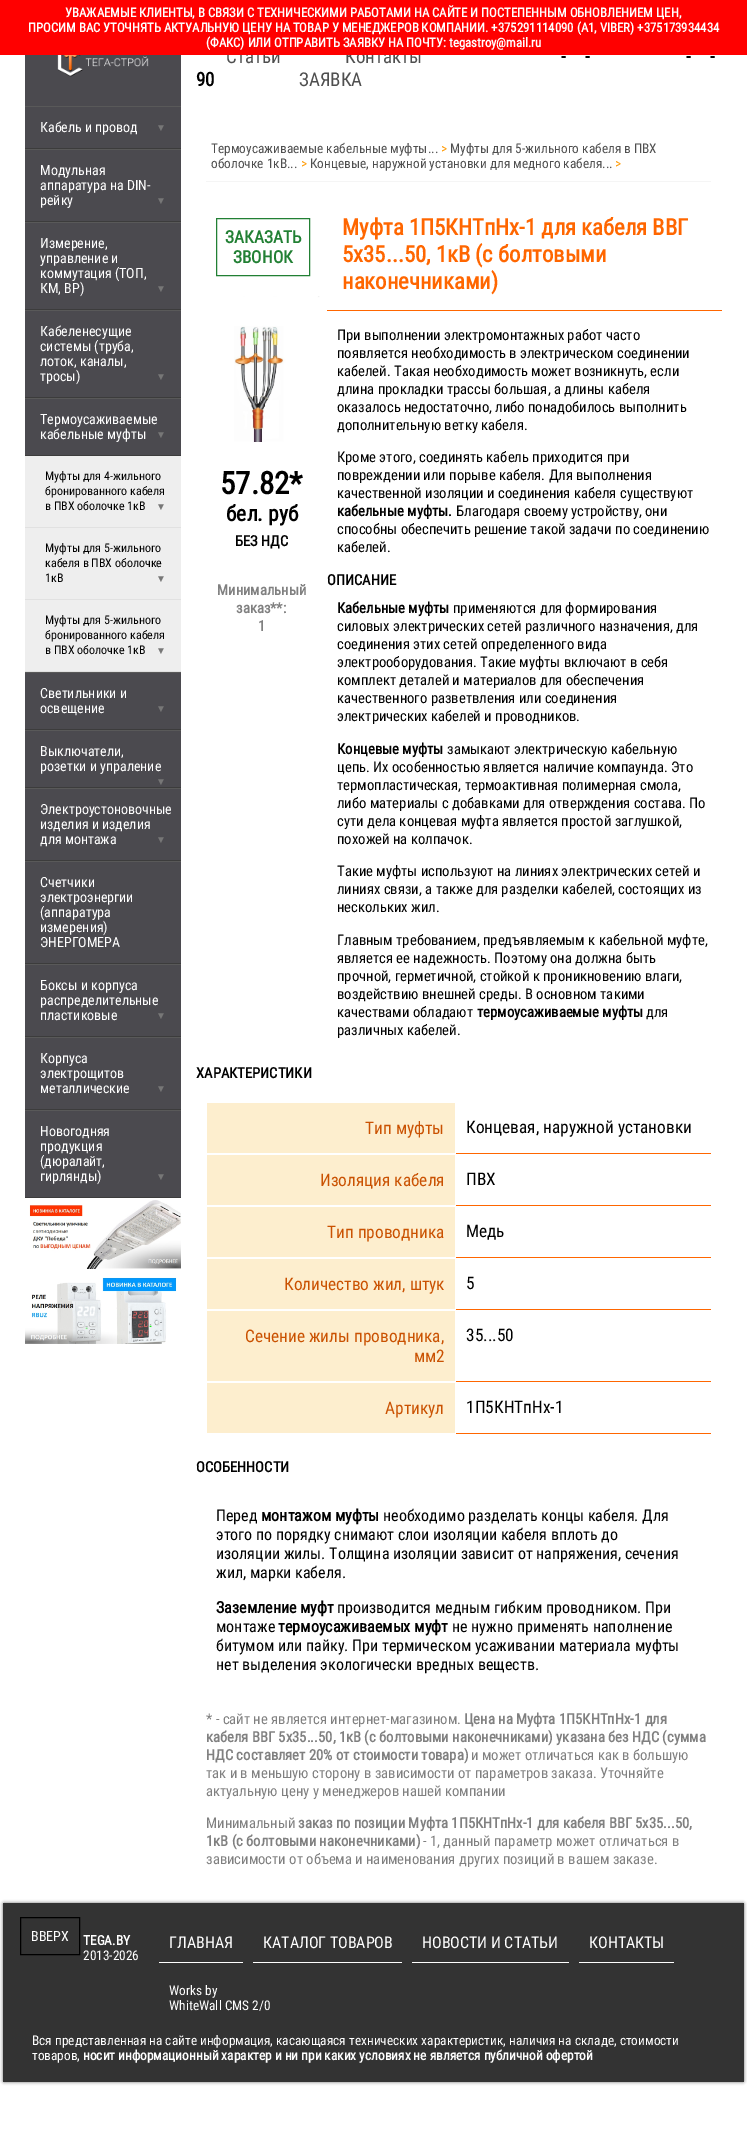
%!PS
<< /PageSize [747 2130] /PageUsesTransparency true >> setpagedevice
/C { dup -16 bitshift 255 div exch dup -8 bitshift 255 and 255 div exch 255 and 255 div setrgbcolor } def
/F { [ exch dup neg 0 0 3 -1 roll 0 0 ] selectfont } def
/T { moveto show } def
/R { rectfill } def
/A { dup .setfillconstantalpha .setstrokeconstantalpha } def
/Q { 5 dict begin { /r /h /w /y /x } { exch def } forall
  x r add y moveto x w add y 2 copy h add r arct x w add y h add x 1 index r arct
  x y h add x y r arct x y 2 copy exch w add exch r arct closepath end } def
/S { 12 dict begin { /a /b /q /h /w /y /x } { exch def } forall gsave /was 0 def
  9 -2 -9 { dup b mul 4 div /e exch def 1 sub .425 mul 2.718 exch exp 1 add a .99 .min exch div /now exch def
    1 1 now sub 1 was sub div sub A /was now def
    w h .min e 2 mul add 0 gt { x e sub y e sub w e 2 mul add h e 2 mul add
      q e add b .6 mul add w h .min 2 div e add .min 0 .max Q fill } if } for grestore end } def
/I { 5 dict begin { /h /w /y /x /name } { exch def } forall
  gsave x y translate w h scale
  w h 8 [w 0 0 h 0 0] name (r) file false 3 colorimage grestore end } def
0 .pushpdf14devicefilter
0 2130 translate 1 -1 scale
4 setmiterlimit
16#FFFFFF C
0 0 747 2130 R
/RobotoCondensed-Regular 19 F
16#4F4F4F C
(Статьи) 226 63 T
(Контакты) 345 63 T
16#FF0000 C
0 0 747 55 R
/RobotoCondensed-Bold 12.8 F
16#FFFFFF C
(УВАЖАЕМЫЕ КЛИЕНТЫ, В СВЯЗИ С ТЕХНИЧЕСКИМИ РАБОТАМИ НА САЙТЕ И ПОСТЕПЕННЫМ ОБНОВЛЕНИЕМ ЦЕН,) 65 17 T
(ПРОСИМ ВАС УТОЧНЯТЬ АКТУАЛЬНУЮ ЦЕНУ НА ТОВАР У МЕНЕДЖЕРОВ КОМПАНИИ. +375291114090 \(A1, VIBER\) +375173934434) 28 32 T
(\(ФАКС\) ИЛИ ОТПРАВИТЬ ЗАЯВКУ НА ПОЧТУ: tegastroy@mail.ru) 206 47 T
/RobotoCondensed-Bold 19 F
16#000000 C
(-) 561 63 T
(-) 585 63 T
(-) 686 63 T
(-) 710 63 T
(90) 196 86 T
/RobotoCondensed-Regular 19 F
16#4F4F4F C
(ЗАЯВКА) 299 86 T
16#4B4A4F C
25 55 156 51 R
(1.rgb) 57 55 92 22 I
25 107 156 41 R
16#595959 C
25 106 156 1 R
16#3C3C3C C
25 148 156 1 R
/RobotoCondensed-Regular 14 F
16#FFFFFF C
(Кабель и провод) 40 132 T
/LiberationSans-Regular 10 F
16#777777 C
(▼) 156 131 T
16#4B4A4F C
25 150 156 71 R
16#595959 C
25 149 156 1 R
16#3C3C3C C
25 221 156 1 R
/RobotoCondensed-Regular 14 F
16#FFFFFF C
(Модульная) 40 175 T
(аппаратура на DIN-) 40 190 T
(рейку) 40 205 T
/LiberationSans-Regular 10 F
16#777777 C
(▼) 156 204 T
16#4B4A4F C
25 223 156 86 R
16#595959 C
25 222 156 1 R
16#3C3C3C C
25 309 156 1 R
/RobotoCondensed-Regular 14 F
16#FFFFFF C
(Измерение,) 40 248 T
(управление и) 40 263 T
(коммутация \(ТОП,) 40 278 T
(КМ, ВР\)) 40 293 T
/LiberationSans-Regular 10 F
16#777777 C
(▼) 156 292 T
16#4B4A4F C
25 311 156 86 R
16#595959 C
25 310 156 1 R
16#3C3C3C C
25 397 156 1 R
/RobotoCondensed-Regular 14 F
16#FFFFFF C
(Кабеленесущие) 40 336 T
(системы \(труба,) 40 351 T
(лоток, каналы,) 40 366 T
(тросы\)) 40 381 T
/LiberationSans-Regular 10 F
16#777777 C
(▼) 156 380 T
16#4B4A4F C
25 399 156 56 R
16#595959 C
25 398 156 1 R
16#3C3C3C C
25 455 156 1 R
/RobotoCondensed-Regular 14 F
16#FFFFFF C
(Термоусаживаемые) 40 424 T
(кабельные муфты) 40 439 T
/LiberationSans-Regular 10 F
16#777777 C
(▼) 156 438 T
16#EEEEEE C
25 456 156 71 R
16#E1E1E1 C
25 527 156 1 R
/RobotoCondensed-Regular 12 F
16#000000 C
(Муфты для 4-жильного) 45 480 T
(бронированного кабеля) 45 495 T
(в ПВХ оболочке 1кВ) 45 510 T
/LiberationSans-Regular 10 F
16#777777 C
(▼) 156 510 T
16#EEEEEE C
25 528 156 71 R
16#E1E1E1 C
25 599 156 1 R
/RobotoCondensed-Regular 12 F
16#000000 C
(Муфты для 5-жильного) 45 552 T
(кабеля в ПВХ оболочке) 45 567 T
(1кВ) 45 582 T
/LiberationSans-Regular 10 F
16#777777 C
(▼) 156 582 T
16#EEEEEE C
25 600 156 71 R
16#E1E1E1 C
25 671 156 1 R
/RobotoCondensed-Regular 12 F
16#000000 C
(Муфты для 5-жильного) 45 624 T
(бронированного кабеля) 45 639 T
(в ПВХ оболочке 1кВ) 45 654 T
/LiberationSans-Regular 10 F
16#777777 C
(▼) 156 654 T
16#4B4A4F C
25 673 156 56 R
16#595959 C
25 672 156 1 R
16#3C3C3C C
25 729 156 1 R
/RobotoCondensed-Regular 14 F
16#FFFFFF C
(Светильники и) 40 698 T
(освещение) 40 713 T
/LiberationSans-Regular 10 F
16#777777 C
(▼) 156 712 T
16#4B4A4F C
25 731 156 56 R
16#595959 C
25 730 156 1 R
16#3C3C3C C
25 787 156 1 R
/RobotoCondensed-Regular 14 F
16#FFFFFF C
(Выключатели,) 40 756 T
(розетки и упраление) 40 771 T
/LiberationSans-Regular 10 F
16#777777 C
(▼) 156 785 T
16#4B4A4F C
25 789 156 71 R
16#595959 C
25 788 156 1 R
16#3C3C3C C
25 860 156 1 R
/RobotoCondensed-Regular 14 F
16#FFFFFF C
(Электроустоновочные) 40 814 T
(изделия и изделия) 40 829 T
(для монтажа) 40 844 T
/LiberationSans-Regular 10 F
16#777777 C
(▼) 156 843 T
16#4B4A4F C
25 862 156 101 R
16#595959 C
25 861 156 1 R
16#3C3C3C C
25 963 156 1 R
/RobotoCondensed-Regular 14 F
16#FFFFFF C
(Счетчики) 40 887 T
(электроэнергии) 40 902 T
(\(аппаратура) 40 917 T
(измерения\)) 40 932 T
(ЭНЕРГОМЕРА) 40 947 T
16#4B4A4F C
25 965 156 71 R
16#595959 C
25 964 156 1 R
16#3C3C3C C
25 1036 156 1 R
16#FFFFFF C
(Боксы и корпуса) 40 990 T
(распределительные) 40 1005 T
(пластиковые) 40 1020 T
/LiberationSans-Regular 10 F
16#777777 C
(▼) 156 1019 T
16#4B4A4F C
25 1038 156 71 R
16#595959 C
25 1037 156 1 R
16#3C3C3C C
25 1109 156 1 R
/RobotoCondensed-Regular 14 F
16#FFFFFF C
(Корпуса) 40 1063 T
(электрощитов) 40 1078 T
(металлические) 40 1093 T
/LiberationSans-Regular 10 F
16#777777 C
(▼) 156 1092 T
16#4B4A4F C
25 1111 156 86 R
16#595959 C
25 1110 156 1 R
16#3C3C3C C
25 1197 156 1 R
/RobotoCondensed-Regular 14 F
16#FFFFFF C
(Новогодняя) 40 1136 T
(продукция) 40 1151 T
(\(дюралайт,) 40 1166 T
(гирлянды\)) 40 1181 T
/LiberationSans-Regular 10 F
16#777777 C
(▼) 156 1180 T
(2.rgb) 29 1200 152 69 I
(3.rgb) 25 1277 152 67 I
16#F5F5F5 C
206 181 505 1 R
/RobotoCondensed-Regular 13.35 F
16#4F4F4F C
(Термоусаживаемые кабельные муфты...) 211 153 T
16#FF9900 C
(>) 441 153 T
16#4F4F4F C
(Муфты для 5-жильного кабеля в ПВХ) 450 153 T
(оболочке 1кВ...) 211 168 T
16#FF9900 C
(>) 301 168 T
16#4F4F4F C
(Концевые, наружной установки для медного кабеля...) 310 168 T
16#FF9900 C
(>) 615 168 T
16#228034 C
216.5 218.5 93 57 rectstroke
/RobotoCondensed-Bold 17.3 F
(ЗАКАЗАТЬ) 225 243 T
(ЗВОНОК) 233 263 T
(4.rgb) 234 296 86 146 I
/RobotoCondensed-Bold 31 F
16#000000 C
(57.82*) 220 494 T
/RobotoCondensed-Bold 21.5 F
(бел. руб) 226 521 T
/RobotoCondensed-Bold 14.65 F
(БЕЗ НДС) 235 546 T
16#808080 C
(Минимальный) 217 595 T
(заказ**:) 236 613 T
(1) 258 631 T
16#FF6600 C
327 310 395 1 R
/RobotoCondensed-Bold 22.7 F
(Муфта 1П5КНТпНх-1 для кабеля ВВГ) 342 235 T
(5х35...50, 1кВ \(с болтовыми) 342 262 T
(наконечниками\)) 342 289 T
/RobotoCondensed-Regular 14.65 F
16#000000 C
(При выполнении электромонтажных работ часто) 337 340 T
(появляется необходимость в электрическом соединении) 337 358 T
(кабелей. Такая необходимость может возникнуть, если) 337 376 T
(длина прокладки трассы большая, а длины кабеля) 337 394 T
(оказалось недостаточно, либо понадобилось выполнить) 337 412 T
(дополнительную ветку кабеля.) 337 430 T
(Кроме этого, соединять кабель приходится при) 337 462 T
(повреждении или порыве кабеля. Для выполнения) 337 480 T
(качественной изоляции и соединения кабеля существуют) 337 498 T
/RobotoCondensed-Bold 14.65 F
(кабельные муфты.) 337 516 T
/RobotoCondensed-Regular 14.65 F
(Благодаря своему устройству, они) 456 516 T
(способны обеспечить решение такой задачи по соединению) 337 534 T
(кабелей.) 337 552 T
/RobotoCondensed-Bold 14.65 F
(ОПИСАНИЕ) 327 585 T
(Кабельные муфты) 337 613 T
/RobotoCondensed-Regular 14.65 F
(применяются для формирования) 453 613 T
(силовых электрических сетей различного назначения, для) 337 631 T
(соединения этих сетей определенного вида) 337 649 T
(электрооборудования. Такие муфты включают в себя) 337 667 T
(комплект деталей и материалов для обеспечения) 337 685 T
(качественного разветвления или соединения) 337 703 T
(электрических кабелей и проводников.) 337 721 T
/RobotoCondensed-Bold 14.65 F
(Концевые муфты) 337 754 T
/RobotoCondensed-Regular 14.65 F
(замыкают электрическую кабельную) 447 754 T
(цепь. Их особенностью является наличие компаунда. Это) 337 772 T
(термопластическая, термоактивная полимерная смола,) 337 790 T
(либо материалы с добавками для отверждения состава. По) 337 808 T
(сути дела концевая муфта является простой заглушкой,) 337 826 T
(похожей на колпачок.) 337 844 T
(Такие муфты используют на линиях электрических сетей и) 337 876 T
(линиях связи, а также для разделки кабелей, состоящих из) 337 894 T
(нескольких жил.) 337 912 T
(Главным требованием, предъявляемым к кабельной муфте,) 337 945 T
(является ее надежность. Поэтому она должна быть) 337 963 T
(прочной, герметичной, стойкой к проникновению влаги,) 337 981 T
(воздействию внешней среды. В основном такими) 337 999 T
(качествами обладают) 337 1017 T
/RobotoCondensed-Bold 14.65 F
(термоусаживаемые муфты) 477 1017 T
/RobotoCondensed-Regular 14.65 F
(для) 646 1017 T
(различных кабелей.) 337 1035 T
/RobotoCondensed-Bold 14.65 F
(ХАРАКТЕРИСТИКИ) 196 1078 T
16#FF6600 C
456 1153 255 1 R
16#FDEECE C
207 1103 248 50 R
/RobotoCondensed-Regular 17.3 F
16#CA5202 C
(Тип муфты) 365 1134 T
16#000000 C
(Концевая, наружной установки) 466 1133 T
16#FF6600 C
456 1205 255 1 R
16#FDEECE C
207 1155 248 50 R
16#CA5202 C
(Изоляция кабеля) 320 1186 T
16#000000 C
(ПВХ) 466 1185 T
16#FF6600 C
456 1257 255 1 R
16#FDEECE C
207 1207 248 50 R
16#CA5202 C
(Тип проводника) 327 1238 T
16#000000 C
(Медь) 466 1237 T
16#FF6600 C
456 1309 255 1 R
16#FDEECE C
207 1259 248 50 R
16#CA5202 C
(Количество жил, штук) 284 1290 T
16#000000 C
(5) 466 1289 T
16#FF6600 C
456 1381 255 1 R
16#FDEECE C
207 1311 248 70 R
16#CA5202 C
(Сечение жилы проводника,) 245 1342 T
(мм2) 414 1362 T
16#000000 C
(35...50) 466 1341 T
16#FF6600 C
456 1433 255 1 R
16#FDEECE C
207 1383 248 50 R
16#CA5202 C
(Артикул) 385 1414 T
16#000000 C
(1П5КНТпНх-1) 466 1413 T
/RobotoCondensed-Bold 14.65 F
(ОСОБЕННОСТИ) 196 1472 T
/RobotoCondensed-Regular 16 F
(Перед) 216 1521 T
/RobotoCondensed-Bold 16 F
(монтажом муфты) 261 1521 T
/RobotoCondensed-Regular 16 F
(необходимо разделать концы кабеля. Для) 383 1521 T
(этого по порядку снимают слои изоляции кабеля вплоть до) 216 1540 T
(изоляции жилы. Толщина изоляции зависит от напряжения, сечения) 216 1559 T
(жил, марки кабеля.) 216 1578 T
/RobotoCondensed-Bold 16 F
(Заземление муфт) 216 1613 T
/RobotoCondensed-Regular 16 F
(производится медным гибким проводником. При) 337 1613 T
(монтаже) 216 1632 T
/RobotoCondensed-Bold 16 F
(термоусаживаемых муфт) 278 1632 T
/RobotoCondensed-Regular 16 F
(не нужно применять наполнение) 452 1632 T
(битумом или пайку. При термическом усаживании материала муфты) 216 1651 T
(нет выделения экологически вредных веществ.) 216 1670 T
/RobotoCondensed-Regular 14.65 F
16#808080 C
(* - сайт не является интернет-магазином.) 206 1724 T
/RobotoCondensed-Bold 14.65 F
(Цена на Муфта 1П5КНТпНх-1 для) 464 1724 T
(кабеля ВВГ 5х35...50, 1кВ \(с болтовыми наконечниками\) указана без НДС \(сумма) 206 1742 T
(НДС составляет 20% от стоимости товара\)) 206 1760 T
/RobotoCondensed-Regular 14.65 F
(и может отличаться как в большую) 471 1760 T
(так и в меньшую сторону в зависимости от параметров заказа. Уточняйте) 206 1778 T
(актуальную цену у менеджеров нашей компании) 206 1796 T
(Минимальный) 206 1828 T
/RobotoCondensed-Bold 14.65 F
(заказ по позиции Муфта 1П5КНТпНх-1 для кабеля ВВГ 5х35...50,) 298 1828 T
(1кВ \(с болтовыми наконечниками\)) 206 1846 T
/RobotoCondensed-Regular 14.65 F
(- 1, данный параметр может отличаться в) 423 1846 T
(зависимости от объема и наименования других позиций в вашем заказе.) 206 1864 T
16#000000 C
4 1904 739 177 0 2 1 S
16#333333 C
3 1903 741 179 R
16#000000 C
20.5 1917.5 59 37 rectstroke
/RobotoCondensed-Regular 14 F
16#FFFFFF C
(ВВЕРХ) 31 1941 T
/RobotoCondensed-Bold 13.35 F
(TEGA.BY) 83 1945 T
/RobotoCondensed-Regular 13.35 F
(2013-2026) 83 1960 T
159 1962 84 1 R
/RobotoCondensed-Regular 16 F
(ГЛАВНАЯ) 169 1948 T
253 1962 149 1 R
(КАТАЛОГ ТОВАРОВ) 263 1948 T
412 1962 157 1 R
(НОВОСТИ И СТАТЬИ) 422 1948 T
579 1962 95 1 R
(КОНТАКТЫ) 589 1948 T
/RobotoCondensed-Regular 13.35 F
(Works by) 169 1995 T
(WhiteWall CMS 2/0) 169 2010 T
(Вся представленная на сайте информация, касающаяся технических характеристик, наличия на складе, стоимости) 32 2045 T
(товаров,) 32 2060 T
/RobotoCondensed-Bold 13.35 F
(носит информационный характер и ни при каких условиях не является публичной офертой) 83 2060 T
.poppdf14devicefilter showpage
